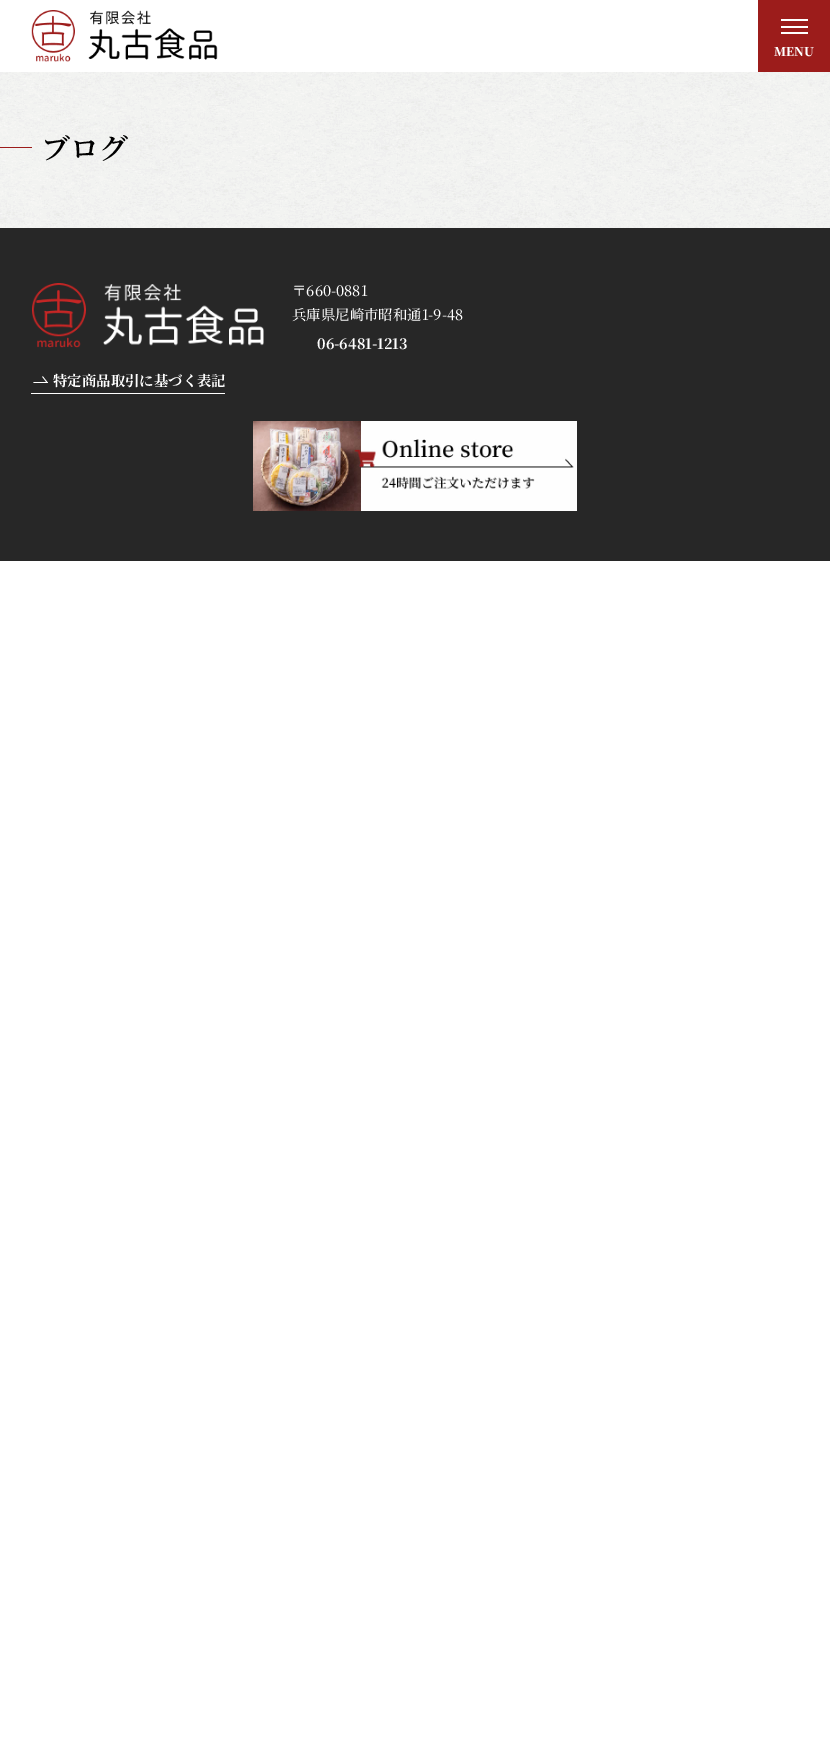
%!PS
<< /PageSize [830 1752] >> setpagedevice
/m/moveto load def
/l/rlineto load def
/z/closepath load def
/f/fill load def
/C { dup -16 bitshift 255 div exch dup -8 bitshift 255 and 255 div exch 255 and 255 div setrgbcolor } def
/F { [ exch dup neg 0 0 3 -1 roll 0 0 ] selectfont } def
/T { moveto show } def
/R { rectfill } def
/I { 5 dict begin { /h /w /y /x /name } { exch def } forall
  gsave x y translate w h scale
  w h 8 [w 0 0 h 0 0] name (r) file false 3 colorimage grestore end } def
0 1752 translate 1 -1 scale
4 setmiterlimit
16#FFFFFF C
0 0 830 1752 R
(1.rgb) 31 10 187 52 I
16#9C1C1B C
758 0 72 72 R
16#FFFFFF C
781 19 27 2 R
781 26 27 2 R
781 32 27 2 R
/NotoSerifJP-Black 12 F
(MENU) 774 56 T
(2.rgb) 0 72 830 156 I
16#9C1C1B C
0 147 32 1 R
/NotoSerifJP-SemiBold 29 F
16#000000 C
(ブログ) 41 159 T
16#272727 C
0 228 830 333 R
(3.rgb) 32 283 232 65 I
/NotoSerifJP-Medium 14.4 F
16#FFFFFF C
(〒660-0881) 292 296 T
(兵庫県尼崎市昭和通1-9-48) 292 320 T
/NotoSerifJP-Bold 14.4 F
(06-6481-1213) 317 349 T
31 393 194 1 R
42 376.5 m 1 0 l 5 6.5 l -1 0 l z f
33 382 m 14.5 0 l .5 1 l -14 0 l z f
(特定商品取引に基づく表記) 53 386 T
(4.rgb) 253 421 324 90 I
showpage
